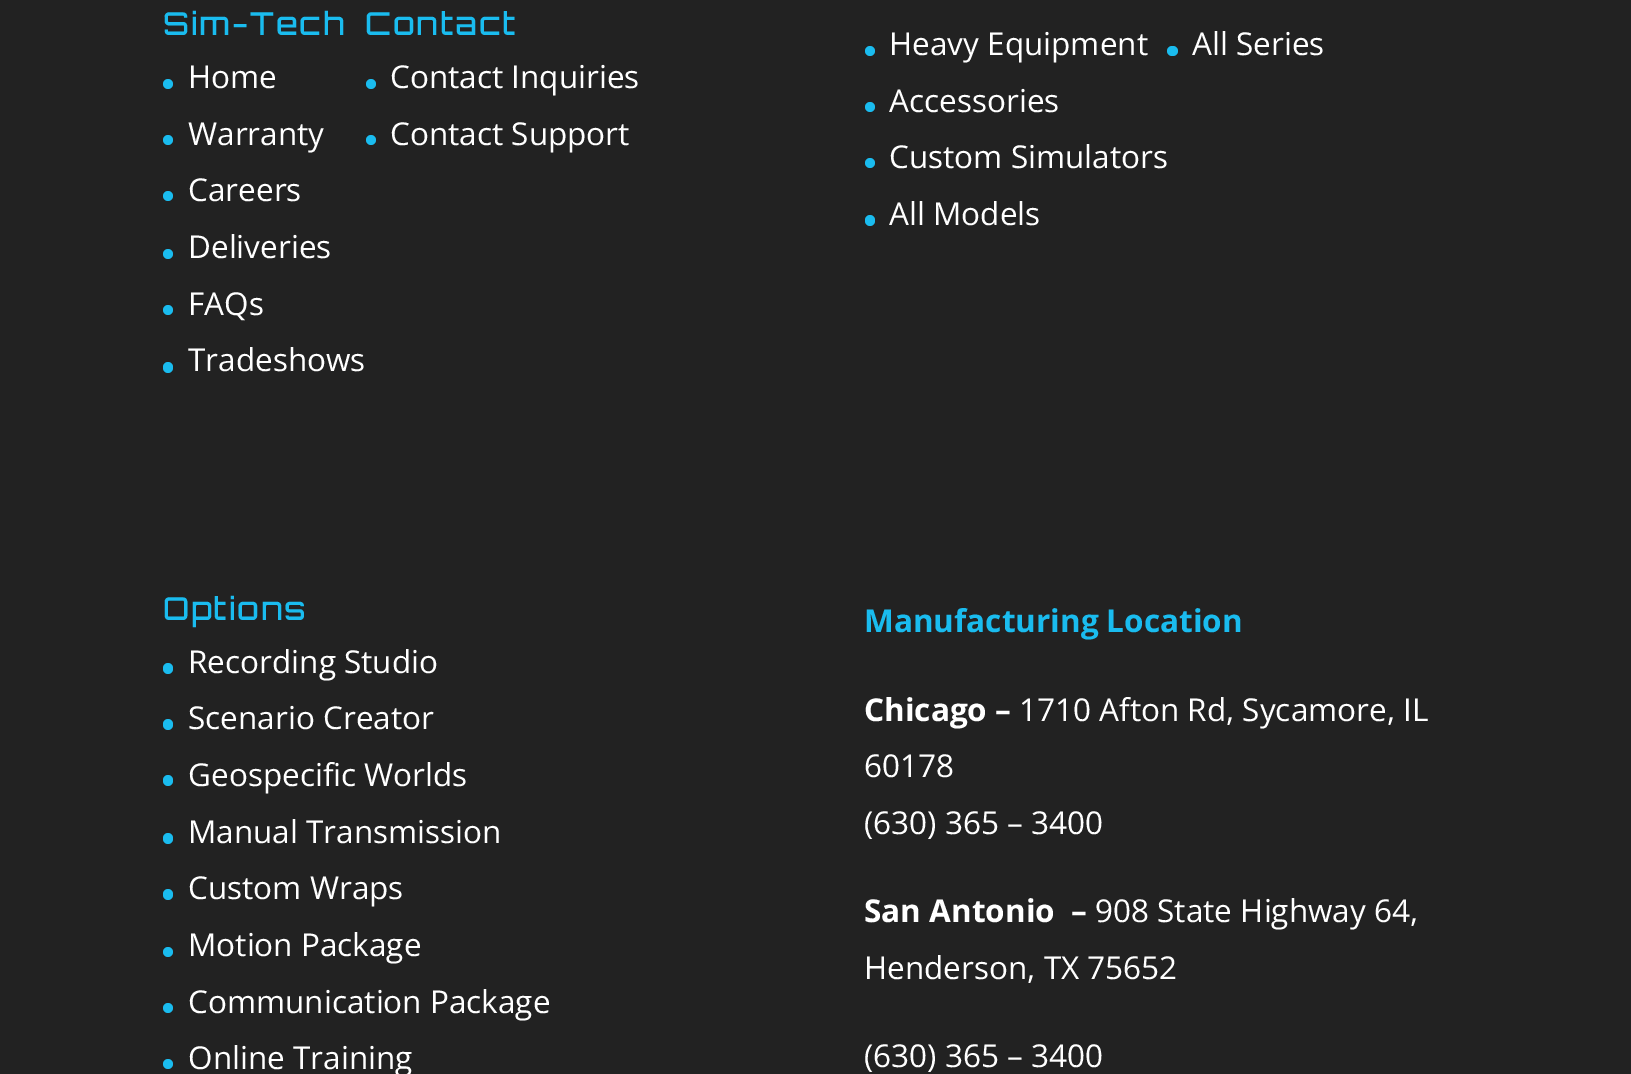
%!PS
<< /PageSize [1631 1074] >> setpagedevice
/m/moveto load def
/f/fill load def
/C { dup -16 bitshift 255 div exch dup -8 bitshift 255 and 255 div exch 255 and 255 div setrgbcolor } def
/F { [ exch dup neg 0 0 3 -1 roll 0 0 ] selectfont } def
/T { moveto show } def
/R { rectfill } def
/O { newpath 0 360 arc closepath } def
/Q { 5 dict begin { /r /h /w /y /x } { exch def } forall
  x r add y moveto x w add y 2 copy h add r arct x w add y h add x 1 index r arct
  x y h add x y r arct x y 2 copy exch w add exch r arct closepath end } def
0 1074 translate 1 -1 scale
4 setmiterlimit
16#222222 C
0 0 1631 1074 R
/Orbitron-Medium 31.5 F
16#1ABCEF C
163 35 m 1.75 0 (Sim-Tech) ashow
168 84 5 O f
/OpenSans-Regular 31.5 F
16#FFFFFF C
(Home) 188 88 T
16#1ABCEF C
168 140 5 O f
16#FFFFFF C
(Warranty) 188 145 T
16#1ABCEF C
168 196 5 O f
16#FFFFFF C
(Careers) 188 201 T
16#1ABCEF C
168 254 5 O f
16#FFFFFF C
(Deliveries) 188 258 T
16#1ABCEF C
168 310 5 O f
16#FFFFFF C
(FAQs) 188 315 T
16#1ABCEF C
163 362 10 11 5 Q f
16#FFFFFF C
(Tradeshows) 188 371 T
/Orbitron-Medium 31.5 F
16#1ABCEF C
365 35 m 1.75 0 (Contact) ashow
371 84 5 O f
/OpenSans-Regular 31.5 F
16#FFFFFF C
(Contact Inquiries) 390 88 T
16#1ABCEF C
371 140 5 O f
16#FFFFFF C
(Contact Support) 390 145 T
16#1ABCEF C
870 51 5 O f
16#FFFFFF C
(Heavy Equipment) 889 55 T
16#1ABCEF C
870 107 5 O f
16#FFFFFF C
(Accessories) 889 112 T
16#1ABCEF C
870 163 5 O f
16#FFFFFF C
(Custom Simulators) 889 168 T
16#1ABCEF C
865 215 10 11 5 Q f
16#FFFFFF C
(All Models) 889 225 T
16#1ABCEF C
1167 46 11 10 5 Q f
16#FFFFFF C
(All Series) 1192 55 T
/Orbitron-Medium 31.5 F
16#1ABCEF C
163 620 m 1.75 0 (Options) ashow
163 663 10 11 5 Q f
/OpenSans-Regular 31.5 F
16#FFFFFF C
(Recording Studio) 188 673 T
16#1ABCEF C
163 719 10 11 5 Q f
16#FFFFFF C
(Scenario Creator) 188 729 T
16#1ABCEF C
163 775 10 11 5 Q f
16#FFFFFF C
(Geospecific Worlds) 188 786 T
16#1ABCEF C
163 833 10 11 5 Q f
16#FFFFFF C
(Manual Transmission) 188 843 T
16#1ABCEF C
163 889 10 11 5 Q f
16#FFFFFF C
(Custom Wraps) 188 899 T
16#1ABCEF C
168 952 5 O f
16#FFFFFF C
(Motion Package) 188 956 T
16#1ABCEF C
168 1008 5 O f
16#FFFFFF C
(Communication Package) 188 1013 T
16#1ABCEF C
168 1064 5 O f
16#FFFFFF C
(Online Training) 188 1069 T
/OpenSans-Bold 31.5 F
16#1ABCEF C
(Manufacturing Location) 864 632 T
16#FFFFFF C
(Chicago –) 864 721 T
/OpenSans-Regular 31.5 F
(1710 Afton Rd, Sycamore, IL) 1019 721 T
(60178) 864 777 T
(\(630\) 365 – 3400) 864 834 T
/OpenSans-Bold 31.5 F
(San Antonio) 864 922 T
(–) 1071 922 T
/OpenSans-Regular 31.5 F
(908 State Highway 64,) 1095 922 T
(Henderson, TX 75652) 864 979 T
(\(630\) 365 – 3400) 864 1067 T
showpage
